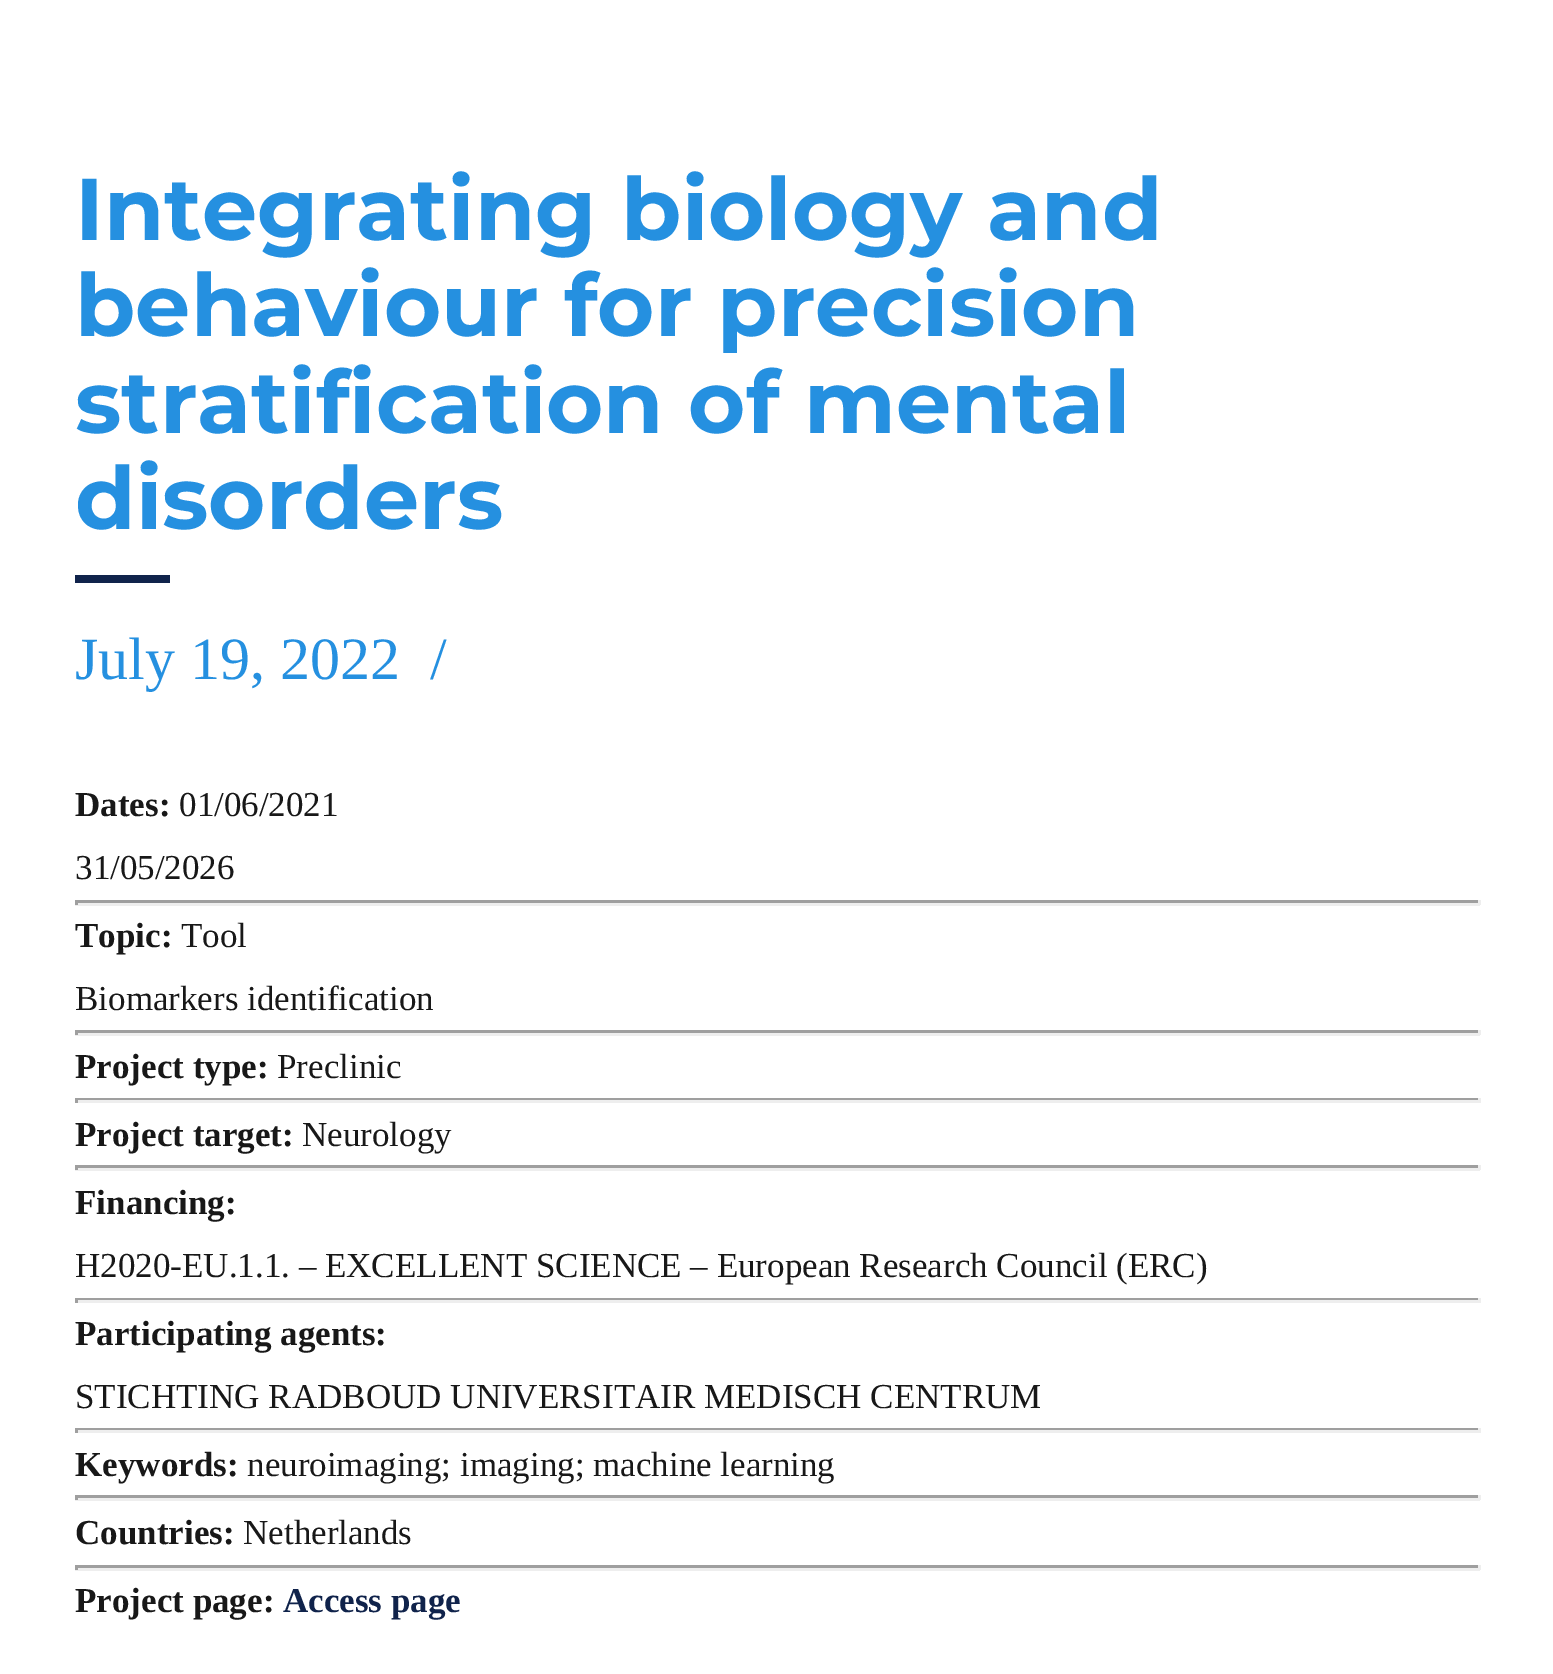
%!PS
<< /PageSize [1553 1674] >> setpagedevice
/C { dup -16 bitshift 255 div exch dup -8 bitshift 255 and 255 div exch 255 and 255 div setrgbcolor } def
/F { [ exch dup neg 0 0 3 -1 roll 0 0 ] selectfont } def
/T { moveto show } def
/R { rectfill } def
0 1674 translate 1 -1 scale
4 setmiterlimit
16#FFFFFF C
0 0 1553 1674 R
/Montserrat-Bold 87.5 F
16#2590E0 C
(Integrating biology and) 75 240 T
(behaviour for precision) 75 336 T
(stratification of mental) 75 433 T
(disorders) 75 529 T
16#10234B C
75 575 95 8 R
/LiberationSerif-Regular 60 F
16#2590E0 C
(July 19, 2022) 75 679 T
(/) 430 679 T
/LiberationSerif-Bold 35 F
16#181818 C
(Dates:) 75 816 T
/LiberationSerif-Regular 35 F
(01/06/2021) 179 816 T
(31/05/2026) 75 879 T
16#9F9F9F C
75 900 1405 3 R
16#EEEEEE C
1478 900 3 5 R
75 903 1405 3 R
16#9F9F9F C
75 900 3 5 R
/LiberationSerif-Bold 35 F
16#181818 C
(Topic:) 75 947 T
/LiberationSerif-Regular 35 F
(Tool) 181 947 T
(Biomarkers identification) 75 1010 T
16#9F9F9F C
75 1030 1405 3 R
16#EEEEEE C
1478 1030 3 5 R
75 1033 1405 3 R
16#9F9F9F C
75 1030 3 5 R
/LiberationSerif-Bold 35 F
16#181818 C
(Project type:) 75 1078 T
/LiberationSerif-Regular 35 F
(Preclinic) 277 1078 T
16#9F9F9F C
75 1098 1405 2 R
16#EEEEEE C
1478 1098 3 5 R
75 1100 1405 3 R
16#9F9F9F C
75 1098 3 5 R
/LiberationSerif-Bold 35 F
16#181818 C
(Project target:) 75 1146 T
/LiberationSerif-Regular 35 F
(Neurology) 302 1146 T
16#9F9F9F C
75 1165 1405 3 R
16#EEEEEE C
1478 1165 3 5 R
75 1168 1405 3 R
16#9F9F9F C
75 1165 3 5 R
/LiberationSerif-Bold 35 F
16#181818 C
(Financing:) 75 1214 T
/LiberationSerif-Regular 35 F
(H2020-EU.1.1. – EXCELLENT SCIENCE – European Research Council \(ERC\)) 75 1277 T
16#9F9F9F C
75 1298 1405 2 R
16#EEEEEE C
1478 1298 3 5 R
75 1300 1405 3 R
16#9F9F9F C
75 1298 3 5 R
/LiberationSerif-Bold 35 F
16#181818 C
(Participating agents:) 75 1345 T
/LiberationSerif-Regular 35 F
(STICHTING RADBOUD UNIVERSITAIR MEDISCH CENTRUM) 75 1408 T
16#9F9F9F C
75 1428 1405 2 R
16#EEEEEE C
1478 1428 3 5 R
75 1430 1405 3 R
16#9F9F9F C
75 1428 3 5 R
/LiberationSerif-Bold 35 F
16#181818 C
(Keywords:) 75 1476 T
/LiberationSerif-Regular 35 F
(neuroimaging; imaging; machine learning) 247 1476 T
16#9F9F9F C
75 1495 1405 3 R
16#EEEEEE C
1478 1495 3 5 R
75 1498 1405 3 R
16#9F9F9F C
75 1495 3 5 R
/LiberationSerif-Bold 35 F
16#181818 C
(Countries:) 75 1544 T
/LiberationSerif-Regular 35 F
(Netherlands) 243 1544 T
16#9F9F9F C
75 1565 1405 3 R
16#EEEEEE C
1478 1565 3 5 R
75 1568 1405 3 R
16#9F9F9F C
75 1565 3 5 R
/LiberationSerif-Bold 35 F
16#181818 C
(Project page:) 75 1612 T
16#10234B C
(Access page) 283 1612 T
showpage
